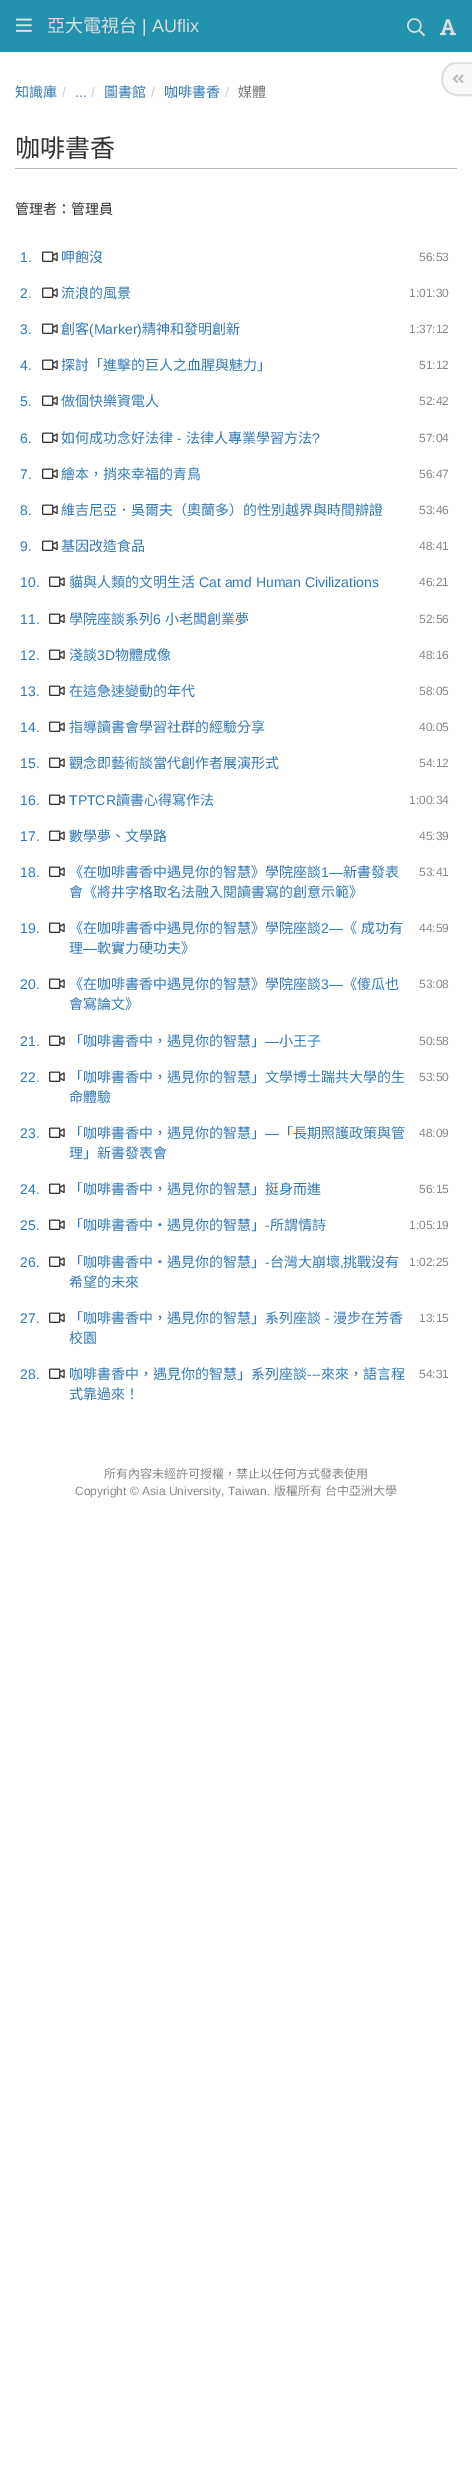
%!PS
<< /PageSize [472 2485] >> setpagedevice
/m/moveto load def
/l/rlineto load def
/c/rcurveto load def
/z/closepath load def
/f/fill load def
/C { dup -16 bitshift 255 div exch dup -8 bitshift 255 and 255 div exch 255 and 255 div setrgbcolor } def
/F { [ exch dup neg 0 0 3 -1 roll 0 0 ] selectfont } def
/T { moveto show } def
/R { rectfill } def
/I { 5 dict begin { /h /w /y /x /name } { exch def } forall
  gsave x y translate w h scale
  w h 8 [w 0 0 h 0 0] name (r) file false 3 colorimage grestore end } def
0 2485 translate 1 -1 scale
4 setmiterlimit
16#FFFFFF C
0 0 472 2485 R
16#2392AE C
0 0 472 52 R
(1.rgb) 16 18 16 14 I
/NotoSansCJKTC-Regular 18 F
16#DDDDDD C
(亞大電視台) 47 32 T
/LiberationSans-Regular 18 F
(| AUflix) 142 32 T
(2.rgb) 407 18 18 19 I
(3.rgb) 440 19 16 17 I
16#F8F8F8 C
457 62 m 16 0 l 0 34 l -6 0 -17 1 -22 -1.5 c -16 -7 -11.5 -32.5 6 -32.5 c z f
16#DFDFDF C
457 62 m 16 0 l 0 34 l -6 0 -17 1 -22 -1.5 c -16 -7 -11.5 -32.5 6 -32.5 c z 457 64 m 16 0 l 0 30 l -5.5 0 -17 1 -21.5 -1 c -13.5 -6.5 -10 -29 5.5 -29 c z eofill
(4.rgb) 452 74 12 9 I
/NotoSansCJKTC-Regular 14 F
16#337AB7 C
(知識庫) 15 97 T
/LiberationSans-Regular 14 F
16#CCCCCC C
(/) 62 97 T
16#337AB7 C
(...) 75 97 T
16#CCCCCC C
(/) 91 97 T
/NotoSansCJKTC-Regular 14 F
16#337AB7 C
(圖書館) 104 97 T
/LiberationSans-Regular 14 F
16#CCCCCC C
(/) 151 97 T
/NotoSansCJKTC-Regular 14 F
16#337AB7 C
(咖啡書香) 164 97 T
/LiberationSans-Regular 14 F
16#CCCCCC C
(/) 225 97 T
/NotoSansCJKTC-Regular 14 F
16#777777 C
(媒體) 238 97 T
16#BBBBBB C
15 168 442 1 R
/NotoSansCJKTC-Regular 25 F
16#333333 C
(咖啡書香) 15 157 T
/NotoSansCJKTC-Regular 14 F
(管理者：管理員) 15 214 T
/LiberationSans-Regular 14 F
16#337AB7 C
(1.) 20 262 T
(5.rgb) 42 251 16 11 I
/NotoSansCJKTC-Regular 14 F
(呷飽沒) 61 262 T
/LiberationSans-Regular 12 F
16#888888 C
(56:53) 419 261 T
/LiberationSans-Regular 14 F
16#337AB7 C
(2.) 20 298 T
(5.rgb) 42 287 16 11 I
/NotoSansCJKTC-Regular 14 F
(流浪的風景) 61 298 T
/LiberationSans-Regular 12 F
16#888888 C
(1:01:30) 409 297 T
/LiberationSans-Regular 14 F
16#337AB7 C
(3.) 20 334 T
(5.rgb) 42 323 16 11 I
/NotoSansCJKTC-Regular 14 F
(創客) 61 334 T
/LiberationSans-Regular 14 F
(\(Marker\)) 89 334 T
/NotoSansCJKTC-Regular 14 F
(精神和發明創新) 142 334 T
/LiberationSans-Regular 12 F
16#888888 C
(1:37:12) 409 333 T
/LiberationSans-Regular 14 F
16#337AB7 C
(4.) 20 370 T
(5.rgb) 42 359 16 11 I
/NotoSansCJKTC-Regular 14 F
(探討「進擊的巨人之血腥與魅力」) 61 370 T
/LiberationSans-Regular 12 F
16#888888 C
(51:12) 419 369 T
/LiberationSans-Regular 14 F
16#337AB7 C
(5.) 20 406 T
(5.rgb) 42 395 16 11 I
/NotoSansCJKTC-Regular 14 F
(做個快樂資電人) 61 406 T
/LiberationSans-Regular 12 F
16#888888 C
(52:42) 419 405 T
/LiberationSans-Regular 14 F
16#337AB7 C
(6.) 20 443 T
(5.rgb) 42 432 16 11 I
/NotoSansCJKTC-Regular 14 F
(如何成功念好法律) 61 443 T
/LiberationSans-Regular 14 F
(-) 177 443 T
/NotoSansCJKTC-Regular 14 F
(法律人專業學習方法) 186 443 T
/LiberationSans-Regular 14 F
(?) 312 443 T
/LiberationSans-Regular 12 F
16#888888 C
(57:04) 419 442 T
/LiberationSans-Regular 14 F
16#337AB7 C
(7.) 20 479 T
(5.rgb) 42 468 16 11 I
/NotoSansCJKTC-Regular 14 F
(繪本，捎來幸福的青鳥) 61 479 T
/LiberationSans-Regular 12 F
16#888888 C
(56:47) 419 478 T
/LiberationSans-Regular 14 F
16#337AB7 C
(8.) 20 515 T
(5.rgb) 42 504 16 11 I
/NotoSansCJKTC-Regular 14 F
(維吉尼亞．吳爾夫（奧蘭多）的性別越界與時間辯證) 61 515 T
/LiberationSans-Regular 12 F
16#888888 C
(53:46) 419 514 T
/LiberationSans-Regular 14 F
16#337AB7 C
(9.) 20 551 T
(5.rgb) 42 540 16 11 I
/NotoSansCJKTC-Regular 14 F
(基因改造食品) 61 551 T
/LiberationSans-Regular 12 F
16#888888 C
(48:41) 419 550 T
/LiberationSans-Regular 14 F
16#337AB7 C
(10.) 20 587 T
(5.rgb) 49 576 16 11 I
/NotoSansCJKTC-Regular 14 F
(貓與人類的文明生活) 69 587 T
/LiberationSans-Regular 14 F
(Cat amd Human Civilizations) 199 587 T
/LiberationSans-Regular 12 F
16#888888 C
(46:21) 419 586 T
/LiberationSans-Regular 14 F
16#337AB7 C
(11.) 20 624 T
(5.rgb) 49 613 16 11 I
/NotoSansCJKTC-Regular 14 F
(學院座談系列) 69 624 T
/LiberationSans-Regular 14 F
(6) 153 624 T
/NotoSansCJKTC-Regular 14 F
(小老闆創業夢) 165 624 T
/LiberationSans-Regular 12 F
16#888888 C
(52:56) 419 623 T
/LiberationSans-Regular 14 F
16#337AB7 C
(12.) 20 660 T
(5.rgb) 49 649 16 11 I
/NotoSansCJKTC-Regular 14 F
(淺談) 69 660 T
/LiberationSans-Regular 14 F
(3D) 97 660 T
/NotoSansCJKTC-Regular 14 F
(物體成像) 115 660 T
/LiberationSans-Regular 12 F
16#888888 C
(48:16) 419 659 T
/LiberationSans-Regular 14 F
16#337AB7 C
(13.) 20 696 T
(5.rgb) 49 685 16 11 I
/NotoSansCJKTC-Regular 14 F
(在這急速變動的年代) 69 696 T
/LiberationSans-Regular 12 F
16#888888 C
(58:05) 419 695 T
/LiberationSans-Regular 14 F
16#337AB7 C
(14.) 20 732 T
(5.rgb) 49 721 16 11 I
/NotoSansCJKTC-Regular 14 F
(指導讀書會學習社群的經驗分享) 69 732 T
/LiberationSans-Regular 12 F
16#888888 C
(40:05) 419 731 T
/LiberationSans-Regular 14 F
16#337AB7 C
(15.) 20 768 T
(5.rgb) 49 757 16 11 I
/NotoSansCJKTC-Regular 14 F
(觀念即藝術談當代創作者展演形式) 69 768 T
/LiberationSans-Regular 12 F
16#888888 C
(54:12) 419 767 T
/LiberationSans-Regular 14 F
16#337AB7 C
(16.) 20 805 T
(5.rgb) 49 794 16 11 I
(TPTCR) 69 805 T
/NotoSansCJKTC-Regular 14 F
(讀書心得寫作法) 116 805 T
/LiberationSans-Regular 12 F
16#888888 C
(1:00:34) 409 804 T
/LiberationSans-Regular 14 F
16#337AB7 C
(17.) 20 841 T
(5.rgb) 49 830 16 11 I
/NotoSansCJKTC-Regular 14 F
(數學夢、文學路) 69 841 T
/LiberationSans-Regular 12 F
16#888888 C
(45:39) 419 840 T
/LiberationSans-Regular 14 F
16#337AB7 C
(18.) 20 877 T
(5.rgb) 49 866 16 11 I
/NotoSansCJKTC-Regular 14 F
(《在咖啡書香中遇見你的智慧》學院座談) 69 877 T
/LiberationSans-Regular 14 F
(1—) 321 877 T
/NotoSansCJKTC-Regular 14 F
(新書發表) 343 877 T
(會《將井字格取名法融入閱讀書寫的創意示範》) 69 897 T
/LiberationSans-Regular 12 F
16#888888 C
(53:41) 419 876 T
/LiberationSans-Regular 14 F
16#337AB7 C
(19.) 20 933 T
(5.rgb) 49 922 16 11 I
/NotoSansCJKTC-Regular 14 F
(《在咖啡書香中遇見你的智慧》學院座談) 69 933 T
/LiberationSans-Regular 14 F
(2—) 321 933 T
/NotoSansCJKTC-Regular 14 F
343 933 m 1 0 32 (《 成功有) widthshow
(理) 69 953 T
/LiberationSans-Regular 14 F
(—) 83 953 T
/NotoSansCJKTC-Regular 14 F
(軟實力硬功夫》) 97 953 T
/LiberationSans-Regular 12 F
16#888888 C
(44:59) 419 932 T
/LiberationSans-Regular 14 F
16#337AB7 C
(20.) 20 989 T
(5.rgb) 49 978 16 11 I
/NotoSansCJKTC-Regular 14 F
(《在咖啡書香中遇見你的智慧》學院座談) 69 989 T
/LiberationSans-Regular 14 F
(3—) 321 989 T
/NotoSansCJKTC-Regular 14 F
(《傻瓜也) 343 989 T
(會寫論文》) 69 1009 T
/LiberationSans-Regular 12 F
16#888888 C
(53:08) 419 988 T
/LiberationSans-Regular 14 F
16#337AB7 C
(21.) 20 1046 T
(5.rgb) 49 1035 16 11 I
/NotoSansCJKTC-Regular 14 F
(「咖啡書香中，遇見你的智慧」) 69 1046 T
/LiberationSans-Regular 14 F
(—) 265 1046 T
/NotoSansCJKTC-Regular 14 F
(小王子) 279 1046 T
/LiberationSans-Regular 12 F
16#888888 C
(50:58) 419 1045 T
/LiberationSans-Regular 14 F
16#337AB7 C
(22.) 20 1082 T
(5.rgb) 49 1071 16 11 I
/NotoSansCJKTC-Regular 14 F
(「咖啡書香中，遇見你的智慧」文學博士踹共大學的生) 69 1082 T
(命體驗) 69 1102 T
/LiberationSans-Regular 12 F
16#888888 C
(53:50) 419 1081 T
/LiberationSans-Regular 14 F
16#337AB7 C
(23.) 20 1138 T
(5.rgb) 49 1127 16 11 I
/NotoSansCJKTC-Regular 14 F
(「咖啡書香中，遇見你的智慧」) 69 1138 T
/LiberationSans-Regular 14 F
(—) 265 1138 T
/NotoSansCJKTC-Regular 14 F
(「長期照護政策與管) 279 1138 T
(理」新書發表會) 69 1158 T
/LiberationSans-Regular 12 F
16#888888 C
(48:09) 419 1137 T
/LiberationSans-Regular 14 F
16#337AB7 C
(24.) 20 1194 T
(5.rgb) 49 1183 16 11 I
/NotoSansCJKTC-Regular 14 F
(「咖啡書香中，遇見你的智慧」挺身而進) 69 1194 T
/LiberationSans-Regular 12 F
16#888888 C
(56:15) 419 1193 T
/LiberationSans-Regular 14 F
16#337AB7 C
(25.) 20 1230 T
(5.rgb) 49 1219 16 11 I
/NotoSansCJKTC-Regular 14 F
(「咖啡書香中‧遇見你的智慧」) 69 1230 T
/LiberationSans-Regular 14 F
(-) 265 1230 T
/NotoSansCJKTC-Regular 14 F
(所謂情詩) 270 1230 T
/LiberationSans-Regular 12 F
16#888888 C
(1:05:19) 409 1229 T
/LiberationSans-Regular 14 F
16#337AB7 C
(26.) 20 1267 T
(5.rgb) 49 1256 16 11 I
/NotoSansCJKTC-Regular 14 F
(「咖啡書香中‧遇見你的智慧」) 69 1267 T
/LiberationSans-Regular 14 F
(-) 265 1267 T
/NotoSansCJKTC-Regular 14 F
(台灣大崩壞) 270 1267 T
(挑戰沒有) 343 1267 T
/LiberationSans-Regular 14 F
(,) 340 1267 T
/NotoSansCJKTC-Regular 14 F
(希望的未來) 69 1287 T
/LiberationSans-Regular 12 F
16#888888 C
(1:02:25) 409 1266 T
/LiberationSans-Regular 14 F
16#337AB7 C
(27.) 20 1323 T
(5.rgb) 49 1312 16 11 I
/NotoSansCJKTC-Regular 14 F
(「咖啡書香中，遇見你的智慧」系列座談) 69 1323 T
/LiberationSans-Regular 14 F
(-) 325 1323 T
/NotoSansCJKTC-Regular 14 F
(漫步在芳香) 333 1323 T
(校園) 69 1343 T
/LiberationSans-Regular 12 F
16#888888 C
(13:15) 419 1322 T
/LiberationSans-Regular 14 F
16#337AB7 C
(28.) 20 1379 T
(5.rgb) 49 1368 16 11 I
/NotoSansCJKTC-Regular 14 F
(咖啡書香中，遇見你的智慧」系列座談) 69 1379 T
/LiberationSans-Regular 14 F
(---) 307 1379 T
/NotoSansCJKTC-Regular 14 F
(來來，語言程) 321 1379 T
(式靠過來！) 69 1399 T
/LiberationSans-Regular 12 F
16#888888 C
(54:31) 419 1378 T
/NotoSansCJKTC-Regular 12 F
(所有內容未經許可授權，禁止以任何方式發表使用) 104 1478 T
/LiberationSans-Regular 12 F
(Copyright © Asia University, Taiwan.) 75 1495 T
/NotoSansCJKTC-Regular 12 F
(版權所有) 274 1495 T
(台中亞洲大學) 325 1495 T
showpage
